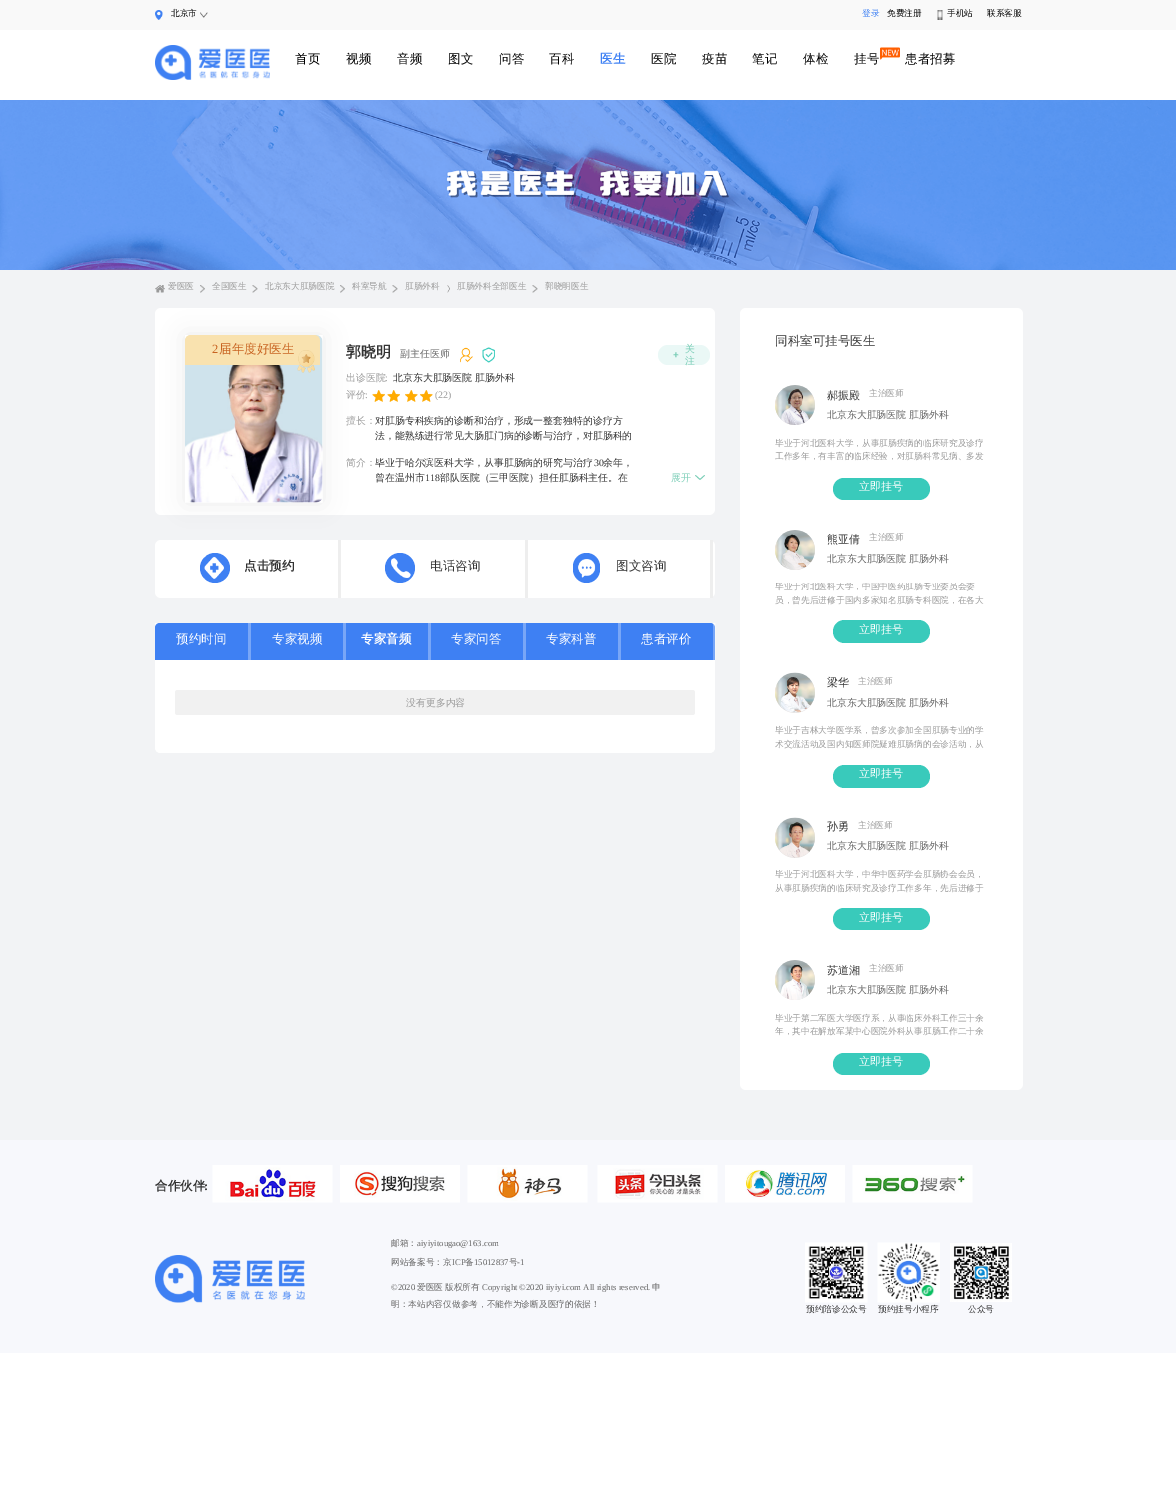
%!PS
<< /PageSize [1176 1489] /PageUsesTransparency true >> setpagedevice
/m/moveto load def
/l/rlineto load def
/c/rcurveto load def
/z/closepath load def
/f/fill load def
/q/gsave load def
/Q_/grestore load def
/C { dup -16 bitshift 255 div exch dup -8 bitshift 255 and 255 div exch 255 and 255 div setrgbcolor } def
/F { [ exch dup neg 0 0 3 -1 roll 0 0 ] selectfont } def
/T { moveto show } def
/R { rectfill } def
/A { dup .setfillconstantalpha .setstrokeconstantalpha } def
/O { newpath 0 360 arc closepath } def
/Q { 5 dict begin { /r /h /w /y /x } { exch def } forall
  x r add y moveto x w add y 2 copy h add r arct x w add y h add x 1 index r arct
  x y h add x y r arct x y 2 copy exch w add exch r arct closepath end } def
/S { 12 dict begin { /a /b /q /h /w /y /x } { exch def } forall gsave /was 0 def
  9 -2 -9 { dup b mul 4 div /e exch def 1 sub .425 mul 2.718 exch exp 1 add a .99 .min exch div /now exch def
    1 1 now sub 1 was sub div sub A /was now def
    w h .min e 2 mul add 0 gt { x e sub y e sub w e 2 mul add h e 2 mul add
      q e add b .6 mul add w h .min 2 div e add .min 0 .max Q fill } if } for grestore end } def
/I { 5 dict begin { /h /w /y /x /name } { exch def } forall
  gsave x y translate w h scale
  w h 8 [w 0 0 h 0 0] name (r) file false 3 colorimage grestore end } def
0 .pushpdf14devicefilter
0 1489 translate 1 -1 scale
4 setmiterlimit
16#FFFFFF C
0 0 1176 1489 R
16#F9F9F9 C
0 0 1176 30 R
(1.rgb) 155 10 8 10 I
/WenQuanYiZenHei-Medium 8.7 F
16#000000 C
(北京市) 171 16 T
(2.rgb) 200 12 8 6 I
16#3E80F3 C
(登录) 862 16 T
16#000000 C
(免费注册) 887 16 T
(3.rgb) 937 10 6 10 I
(手机站) 947 16 T
(联系客服) 987 16 T
(4.rgb) 155 45 115 35 I
/WenQuanYiZenHei-Medium 12.5 F
(首页) 295 63 T
(视频) 346 63 T
(音频) 397 63 T
(图文) 448 63 T
(问答) 499 63 T
(百科) 549 63 T
/WenQuanYiZenHei-Bold 12.5 F
16#3E80F3 C
(医生) 600 63 T
/WenQuanYiZenHei-Medium 12.5 F
16#000000 C
(医院) 651 63 T
(疫苗) 702 63 T
(笔记) 752 63 T
(体检) 803 63 T
(挂号) 854 63 T
(5.rgb) 880 47 20 13 I
(患者招募) 905 63 T
(6.rgb) 0 100 1176 170 I
16#F2F3F5 C
0 270 1176 870 R
(7.rgb) 155 285 10 8 I
/WenQuanYiZenHei-Medium 8.7 F
16#999999 C
(爱医医) 168 289 T
(8.rgb) 200 285 5 8 I
(全国医生) 212 289 T
(9.rgb) 252 285 6 8 I
(北京东大肛肠医院) 265 289 T
(10.rgb) 340 285 5 8 I
(科室导航) 352 289 T
(9.rgb) 392 285 6 8 I
(肛肠外科) 405 289 T
(11.rgb) 447 285 3 8 I
(肛肠外科全部医生) 457 289 T
(9.rgb) 532 285 6 8 I
(郭晓明医生) 545 289 T
16#FFFFFF C
155 308 560 207 6 Q f
16#000000 C
185 335 138 168 0 11.5 .07 S
(12.rgb) 185 335 138 168 I
16#F9E2AF C
191 335 m 123 0 l 3.5 0 6 2.5 6 6 c 0 24 l -135 0 l 0 -24 l 0 -3.5 2.5 -6 6 -6 c z f
/LiberationSerif-Regular 12.5 F
16#C86321 C
(2) 212 353 T
/WenQuanYiZenHei-Medium 12.5 F
(届年度好医生) 219 353 T
(13.rgb) 297 350 18 23 I
/WenQuanYiZenHei-Bold 15 F
16#333333 C
(郭晓明) 346 357 T
/WenQuanYiZenHei-Medium 9.9 F
16#666666 C
(副主任医师) 400 357 T
(14.rgb) 460 347 13 16 I
(15.rgb) 482 347 13 16 I
16#EAF8F6 C
658 345 52 20 10 Q f
16#79CDB6 C
(关) 685 352 T
/LiberationSans-Bold 9.9 F
(+) 673 358 T
/WenQuanYiZenHei-Medium 9.9 F
(注) 685 364 T
16#999999 C
(出诊医院) 346 381 T
/LiberationSerif-Regular 9.9 F
(:) 385 381 T
/WenQuanYiZenHei-Medium 9.9 F
16#333333 C
(北京东大肛肠医院 肛肠外科) 393 381 T
16#999999 C
(评价) 346 398 T
/LiberationSerif-Regular 9.9 F
(:) 365 398 T
(16.rgb) 372 390 13 12 I
(16.rgb) 387 390 13 12 I
(17.rgb) 405 390 13 12 I
(18.rgb) 420 390 13 12 I
(\(22\)) 435 398 T
/WenQuanYiZenHei-Medium 9.9 F
(擅长：) 346 424 T
16#333333 C
(对肛肠专科疾病的诊断和治疗，形成一整套独特的诊疗方) 375 424 T
(法，能熟练进行常见大肠肛门病的诊断与治疗，对肛肠科的) 375 439 T
16#999999 C
(简介：) 346 466 T
q
375 458 258 27 rectclip
16#333333 C
(毕业于哈尔滨医科大学，从事肛肠病的研究与治疗) 375 466 T
Q_
/LiberationSerif-Regular 9.9 F
16#333333 C
(30) 594 466 T
/WenQuanYiZenHei-Medium 9.9 F
(余年，) 603 466 T
(曾在温州市) 375 481 T
/LiberationSerif-Regular 9.9 F
(118) 425 481 T
/WenQuanYiZenHei-Medium 9.9 F
(部队医院（三甲医院）担任肛肠科主任。在) 440 481 T
16#79CDB6 C
(展开) 671 481 T
(19.rgb) 695 475 10 5 I
16#FFFFFF C
155 540 560 58 6 Q f
16#EEEEEE C
338 540 3 58 R
16#3E80F3 C
215 568 15 O f
(20.rgb) 204 556 20 23 I
/WenQuanYiZenHei-Bold 12.5 F
16#333333 C
(点击预约) 244 570 T
16#EEEEEE C
525 540 3 58 R
16#3E80F3 C
400 568 15 O f
(21.rgb) 391 558 20 20 I
/WenQuanYiZenHei-Medium 12.5 F
16#333333 C
(电话咨询) 430 570 T
16#EEEEEE C
710 540 3 58 R
16#3E80F3 C
573 553 27 30 13.5 Q f
(22.rgb) 578 559 18 19 I
16#333333 C
(图文咨询) 616 570 T
16#FFFFFF C
155 623 m 560 0 l 0 124 l 0 3.5 -2.5 6 -6 6 c -548 0 l -3.5 0 -6 -2.5 -6 -6 c z f
16#3E80F3 C
160 623 m 550 0 l 3 0 5 2 5 5 c 0 32 l -560 0 l 0 -32 l 0 -3 2 -5 5 -5 c z f
16#78A6F7 C
248 623 3 37 R
16#FFFFFF C
(预约时间) 176 643 T
16#78A6F7 C
343 623 3 37 R
16#FFFFFF C
(专家视频) 272 643 T
16#78A6F7 C
428 623 3 37 R
/WenQuanYiZenHei-Bold 12.5 F
16#FFFFFF C
(专家音频) 361 643 T
16#78A6F7 C
523 623 3 37 R
/WenQuanYiZenHei-Medium 12.5 F
16#FFFFFF C
(专家问答) 451 643 T
16#78A6F7 C
618 623 3 37 R
16#FFFFFF C
(专家科普) 546 643 T
0.3 A
713 623 3 37 R
1 A
(患者评价) 641 643 T
155 660 m 560 0 l 0 87 l 0 3.5 -2.5 6 -6 6 c -548 0 l -3.5 0 -6 -2.5 -6 -6 c z f
16#F1F1F1 C
175 690 520 25 2.5 Q f
/WenQuanYiZenHei-Medium 9.9 F
16#999999 C
(没有更多内容) 406 706 T
16#FFFFFF C
740 308 283 782 6 Q f
/WenQuanYiZenHei-Medium 12.5 F
16#333333 C
(同科室可挂号医生) 775 345 T
(23.rgb) 775 385 40 40 I
/WenQuanYiZenHei-Medium 11 F
(郝振殿) 827 399 T
/WenQuanYiZenHei-Medium 8.7 F
16#999999 C
(主治医师) 869 396 T
/WenQuanYiZenHei-Medium 9.9 F
16#666666 C
(北京东大肛肠医院 肛肠外科) 827 418 T
/WenQuanYiZenHei-Medium 8.7 F
16#999999 C
(毕业于河北医科大学，从事肛肠疾病的临床研究及诊疗) 775 446 T
(工作多年，有丰富的临床经验，对肛肠科常见病、多发) 775 459 T
16#39CABB C
833 478 97 22 11 Q f
/WenQuanYiZenHei-Medium 11 F
16#FFFFFF C
(立即挂号) 859 490 T
(24.rgb) 775 530 40 40 I
16#333333 C
(熊亚倩) 827 543 T
/WenQuanYiZenHei-Medium 8.7 F
16#999999 C
(主治医师) 869 540 T
/WenQuanYiZenHei-Medium 9.9 F
16#666666 C
(北京东大肛肠医院 肛肠外科) 827 562 T
q
775 583 210 27 rectclip
/WenQuanYiZenHei-Medium 8.7 F
16#999999 C
(毕业于河北医科大学，中国中医药肛肠专业委员会委) 775 589 T
Q_
/WenQuanYiZenHei-Medium 8.7 F
16#999999 C
(员，曾先后进修于国内多家知名肛肠专科医院，在各大) 775 603 T
16#39CABB C
833 620 97 23 11.5 Q f
/WenQuanYiZenHei-Medium 11 F
16#FFFFFF C
(立即挂号) 859 633 T
16#E7E3E2 C
795 693 20 O f
(25.rgb) 775 672 40 41 I
16#333333 C
(梁华) 827 686 T
/WenQuanYiZenHei-Medium 8.7 F
16#999999 C
(主治医师) 858 684 T
/WenQuanYiZenHei-Medium 9.9 F
16#666666 C
(北京东大肛肠医院 肛肠外科) 827 706 T
/WenQuanYiZenHei-Medium 8.7 F
16#999999 C
(毕业于吉林大学医学系，曾多次参加全国肛肠专业的学) 775 733 T
(术交流活动及国内知医师院疑难肛肠病的会诊活动，从) 775 747 T
16#39CABB C
833 765 97 23 11.5 Q f
/WenQuanYiZenHei-Medium 11 F
16#FFFFFF C
(立即挂号) 859 777 T
16#E7E3E2 C
795 838 20 O f
(26.rgb) 775 817 40 41 I
16#333333 C
(孙勇) 827 830 T
/WenQuanYiZenHei-Medium 8.7 F
16#999999 C
(主治医师) 858 828 T
/WenQuanYiZenHei-Medium 9.9 F
16#666666 C
(北京东大肛肠医院 肛肠外科) 827 849 T
q
775 870 210 28 rectclip
/WenQuanYiZenHei-Medium 8.7 F
16#999999 C
(毕业于河北医科大学，中华中医药学会肛肠协会会员，) 775 877 T
Q_
/WenQuanYiZenHei-Medium 8.7 F
16#999999 C
(从事肛肠疾病的临床研究及诊疗工作多年，先后进修于) 775 891 T
16#39CABB C
833 908 97 22 11 Q f
/WenQuanYiZenHei-Medium 11 F
16#FFFFFF C
(立即挂号) 859 921 T
(27.rgb) 775 960 40 40 I
16#333333 C
(苏道湘) 827 974 T
/WenQuanYiZenHei-Medium 8.7 F
16#999999 C
(主治医师) 869 971 T
/WenQuanYiZenHei-Medium 9.9 F
16#666666 C
(北京东大肛肠医院 肛肠外科) 827 993 T
/WenQuanYiZenHei-Medium 8.7 F
16#999999 C
(毕业于第二军医大学医疗系，从事临床外科工作三十余) 775 1021 T
(年，其中在解放军某中心医院外科从事肛肠工作二十余) 775 1034 T
16#39CABB C
833 1053 97 22 11 Q f
/WenQuanYiZenHei-Medium 11 F
16#FFFFFF C
(立即挂号) 859 1065 T
16#F7F8FC C
0 1140 1176 213 R
/WenQuanYiZenHei-Bold 12.5 F
16#333333 C
(合作伙伴) 155 1190 T
/LiberationSerif-Bold 12.5 F
(:) 204 1190 T
(28.rgb) 212 1165 121 38 I
(29.rgb) 340 1165 120 38 I
(30.rgb) 467 1165 121 38 I
(31.rgb) 597 1165 121 38 I
(32.rgb) 725 1165 120 38 I
(33.rgb) 852 1165 121 38 I
(34.rgb) 155 1255 150 48 I
/WenQuanYiZenHei-Medium 8.7 F
16#666666 C
(邮箱：) 391 1246 T
/LiberationSerif-Regular 8.7 F
(aiyiyitougao@163.com) 417 1246 T
/WenQuanYiZenHei-Medium 8.7 F
(网站备案号：京) 391 1265 T
/LiberationSerif-Regular 8.7 F
(ICP) 452 1265 T
/WenQuanYiZenHei-Medium 8.7 F
(备) 465 1265 T
/LiberationSerif-Regular 8.7 F
(15012837) 474 1265 T
/WenQuanYiZenHei-Medium 8.7 F
(号) 509 1265 T
/LiberationSerif-Regular 8.7 F
(-1) 517 1265 T
(©2020) 391 1290 T
/WenQuanYiZenHei-Medium 8.7 F
(爱医医) 417 1290 T
(版权所有) 445 1290 T
/LiberationSerif-Regular 8.7 F
(Copyright ©2020 iiyiyi.com All rights reserved.) 482 1290 T
/WenQuanYiZenHei-Medium 8.7 F
(申) 652 1290 T
(明：本站内容仅做参考，不能作为诊断及医疗的依据！) 391 1307 T
(35.rgb) 805 1242 63 61 I
16#333333 C
(预约陪诊公众号) 806 1312 T
(36.rgb) 877 1242 63 61 I
(预约挂号小程序) 878 1312 T
(37.rgb) 950 1243 62 59 I
(公众号) 968 1312 T
.poppdf14devicefilter showpage
